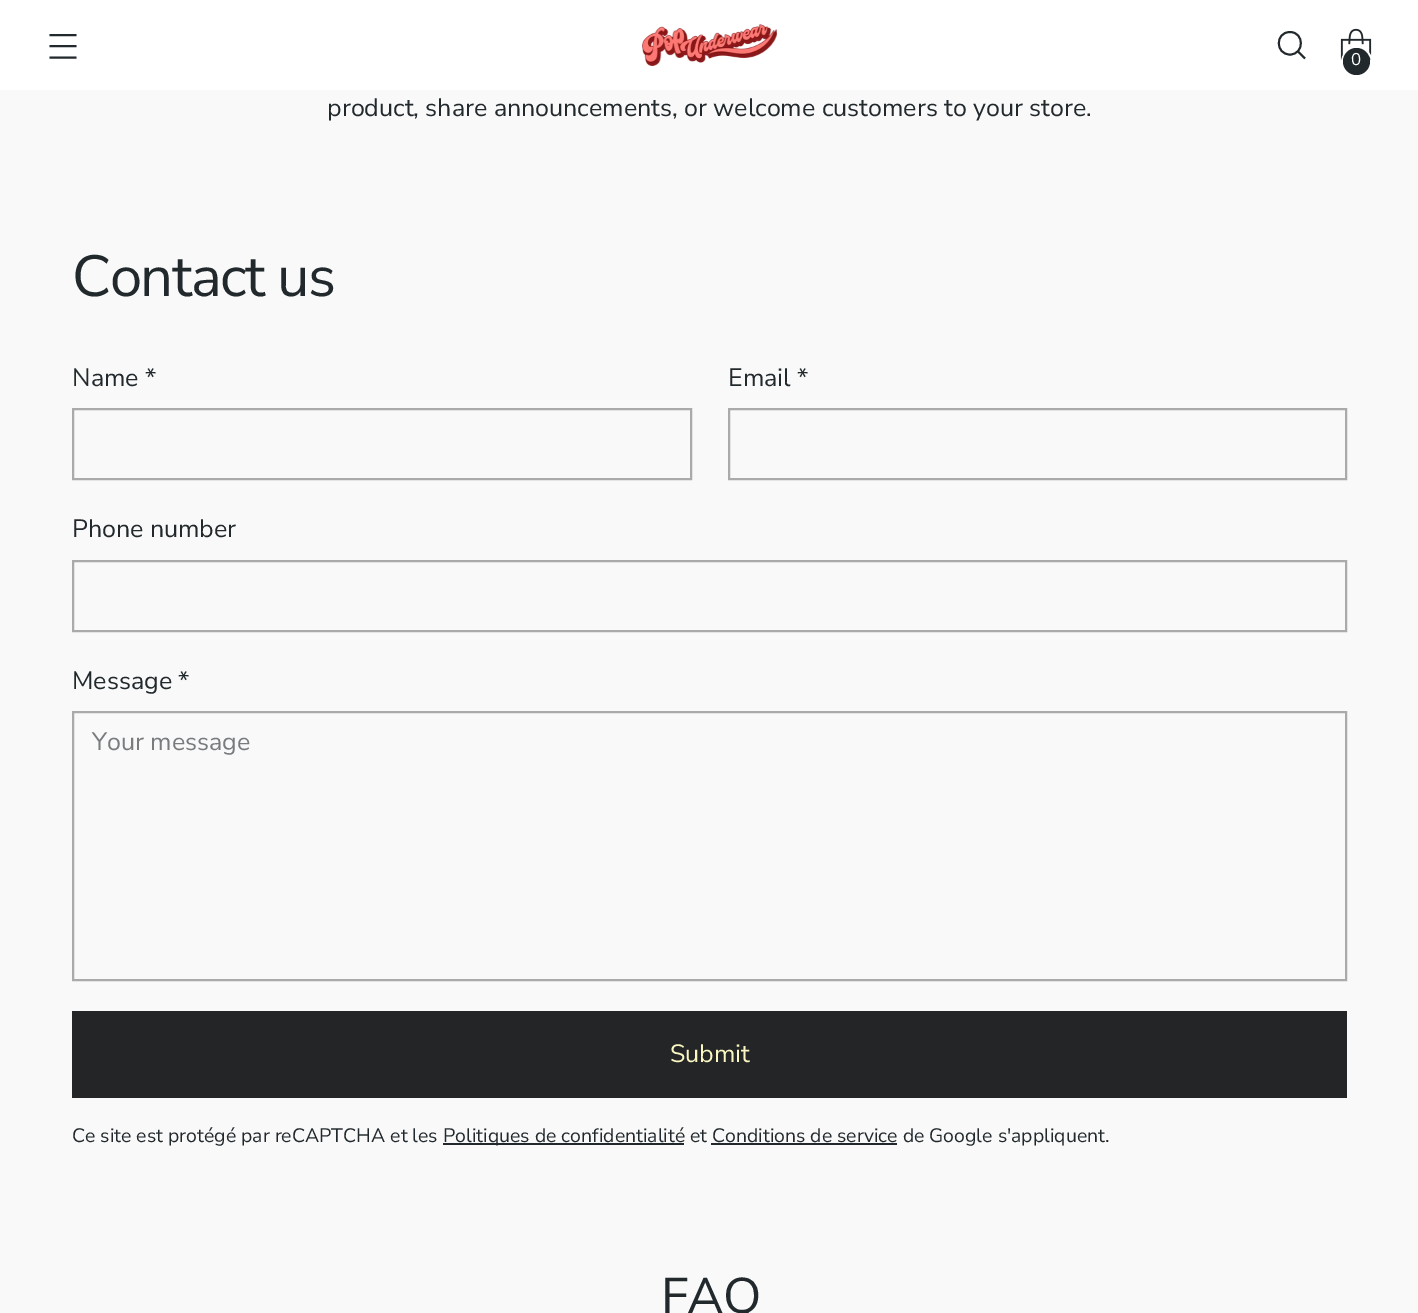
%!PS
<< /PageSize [1418 1313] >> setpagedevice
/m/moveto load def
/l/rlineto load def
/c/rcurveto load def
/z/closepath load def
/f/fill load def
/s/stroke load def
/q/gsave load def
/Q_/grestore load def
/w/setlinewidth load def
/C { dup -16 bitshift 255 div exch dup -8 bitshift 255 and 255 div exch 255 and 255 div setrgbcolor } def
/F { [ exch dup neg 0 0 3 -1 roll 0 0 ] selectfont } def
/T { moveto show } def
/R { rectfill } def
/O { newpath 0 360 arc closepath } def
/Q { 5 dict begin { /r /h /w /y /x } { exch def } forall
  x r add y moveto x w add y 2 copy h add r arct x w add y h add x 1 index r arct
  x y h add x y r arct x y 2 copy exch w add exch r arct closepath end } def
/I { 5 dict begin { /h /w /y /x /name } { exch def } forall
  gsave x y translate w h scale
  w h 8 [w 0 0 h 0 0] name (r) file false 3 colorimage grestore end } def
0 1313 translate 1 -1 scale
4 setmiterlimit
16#F9F9F9 C
0 0 1418 1313 R
16#FFFFFF C
0 0 1418 90 R
16#22292D C
1.9 w
49.5 46 m 27 0 l 49.5 35 m 27 0 l 49.5 57.5 m 27 0 l s
(1.rgb) 642 24 135 42 I
1 setlinecap
1290 54.5 m 14.5 0 14.5 -22.5 0 -22.5 c -15 0 -15 22.5 0 22.5 c z s
0 setlinecap
1298 51.5 m 7 7 l s
(2.rgb) 1340 28 32 32 I
16#FFFFFF C
2 w
1342 48 30 29 14.5 Q s
16#22292D C
1356.5 61.5 13.5 O f
/NunitoSans-Regular 17 F
16#FFFFFF C
(0) 1351 65 T
/NunitoSans-Regular 25 F
16#22292D C
(product, share announcements, or welcome customers to your store.) 327 116 T
/NunitoSans-Regular 58 F
72 296 m -1.5 0 (Contact us) ashow
/NunitoSans-Regular 25 F
(Name *) 72 386 T
16#AAAAAA C
73 409 618 70 rectstroke
16#22292D C
(Email *) 728 386 T
16#AAAAAA C
729 409 617 70 rectstroke
16#22292D C
(Phone number) 72 537 T
16#AAAAAA C
73 561 1273 70 rectstroke
16#22292D C
(Message *) 72 689 T
16#AAAAAA C
73 712 1273 268 rectstroke
16#787C7F C
(Your message) 92 750 T
q
72 1011 1275 87 rectclip
16#242526 C
-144 1011 m 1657 0 l 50 87 l -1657 0 l z f
Q_
16#FAF7C3 C
(Submit) 670 1062 T
/NunitoSans-Regular 19.45 F
16#22292D C
(Ce site est protégé par reCAPTCHA et les) 72 1142 T
443 1143 241 2 R
(Politiques de confidentialité et Conditions de service de Google s'appliquent.) 443 1142 T
711 1143 186 2 R
/NunitoSans-Regular 50 F
661 1313 m -1 0 (FAQ) ashow
showpage
